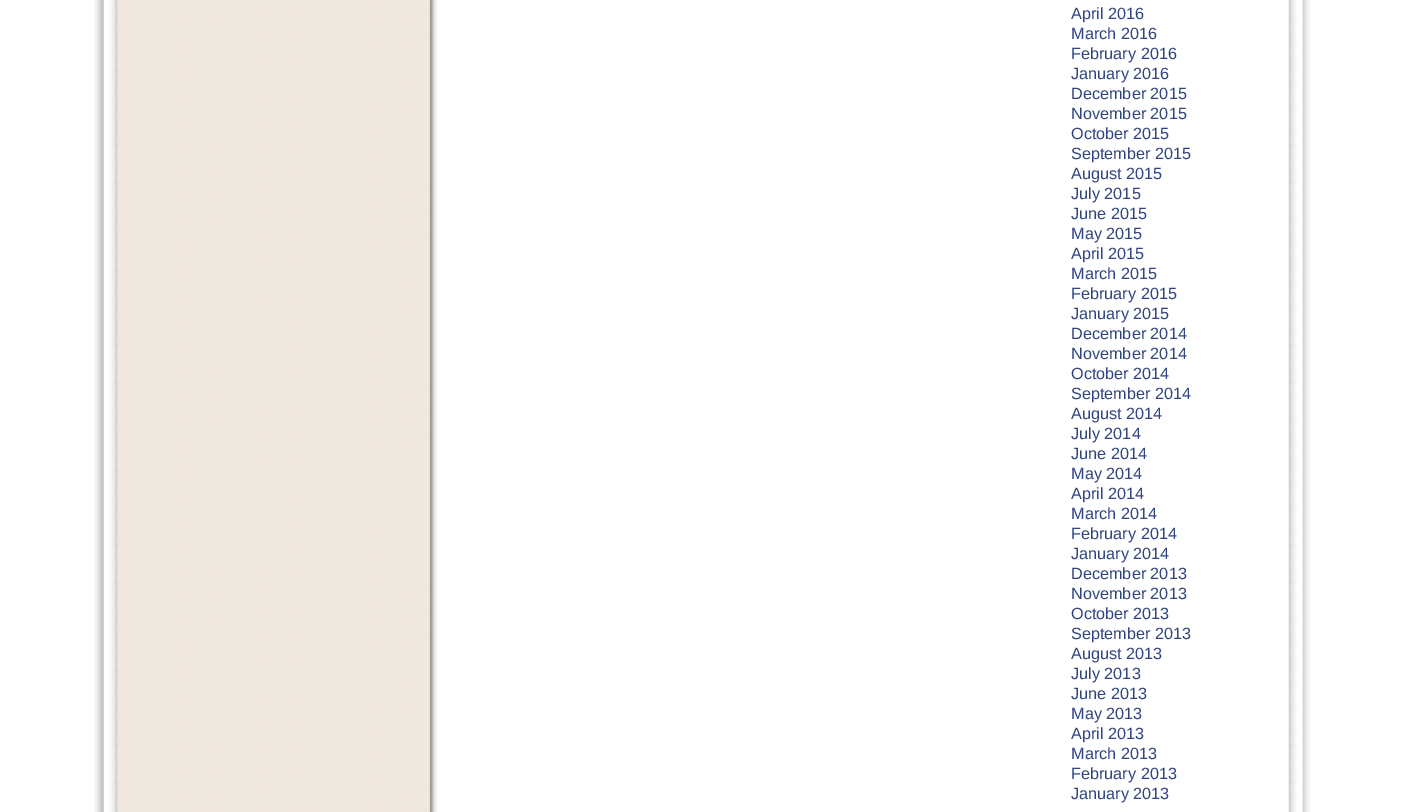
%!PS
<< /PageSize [1405 812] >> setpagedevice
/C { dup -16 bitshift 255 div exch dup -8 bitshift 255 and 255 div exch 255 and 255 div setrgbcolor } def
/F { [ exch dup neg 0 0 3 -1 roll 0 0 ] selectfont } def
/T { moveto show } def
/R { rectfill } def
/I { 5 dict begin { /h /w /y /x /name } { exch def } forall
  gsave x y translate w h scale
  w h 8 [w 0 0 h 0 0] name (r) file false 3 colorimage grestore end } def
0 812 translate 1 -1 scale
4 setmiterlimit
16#FFFFFF C
0 0 1405 812 R
(1.rgb) 94 0 1216 812 I
/LiberationSans-Regular 16.25 F
16#2F4581 C
(April 2016) 1071 19 T
(March 2016) 1071 39 T
(February 2016) 1071 59 T
(January 2016) 1071 79 T
(December 2015) 1071 99 T
(November 2015) 1071 119 T
(October 2015) 1071 139 T
(September 2015) 1071 159 T
(August 2015) 1071 179 T
(July 2015) 1071 199 T
(June 2015) 1071 219 T
(May 2015) 1071 239 T
(April 2015) 1071 259 T
(March 2015) 1071 279 T
(February 2015) 1071 299 T
(January 2015) 1071 319 T
(December 2014) 1071 339 T
(November 2014) 1071 359 T
(October 2014) 1071 379 T
(September 2014) 1071 399 T
(August 2014) 1071 419 T
(July 2014) 1071 439 T
(June 2014) 1071 459 T
(May 2014) 1071 479 T
(April 2014) 1071 499 T
(March 2014) 1071 519 T
(February 2014) 1071 539 T
(January 2014) 1071 559 T
(December 2013) 1071 579 T
(November 2013) 1071 599 T
(October 2013) 1071 619 T
(September 2013) 1071 639 T
(August 2013) 1071 659 T
(July 2013) 1071 679 T
(June 2013) 1071 699 T
(May 2013) 1071 719 T
(April 2013) 1071 739 T
(March 2013) 1071 759 T
(February 2013) 1071 779 T
(January 2013) 1071 799 T
showpage
